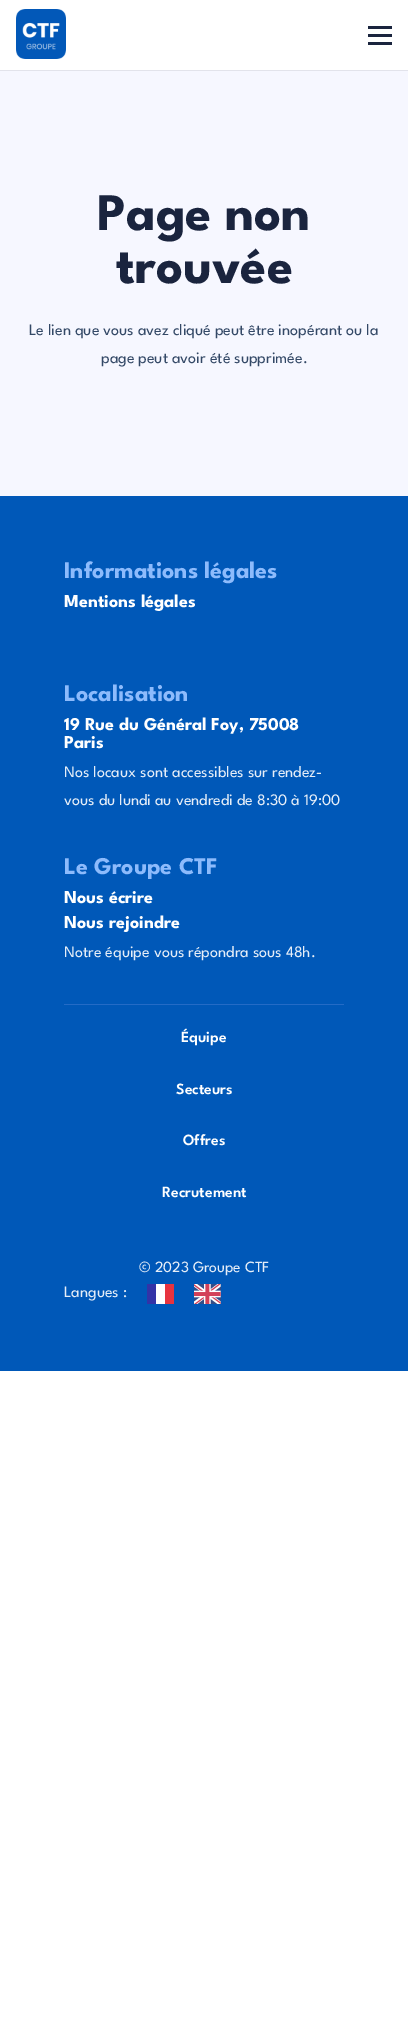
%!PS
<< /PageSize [408 2033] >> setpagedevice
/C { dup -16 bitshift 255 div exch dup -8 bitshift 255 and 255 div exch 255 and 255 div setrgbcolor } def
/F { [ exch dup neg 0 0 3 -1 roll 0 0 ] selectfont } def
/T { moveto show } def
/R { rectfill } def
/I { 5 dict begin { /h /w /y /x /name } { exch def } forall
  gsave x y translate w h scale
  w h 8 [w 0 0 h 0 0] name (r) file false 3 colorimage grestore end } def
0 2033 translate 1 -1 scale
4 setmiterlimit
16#FFFFFF C
0 0 408 2033 R
16#F6F7FF C
0 71 408 425 R
16#E2E3EB C
0 70 408 1 R
(1.rgb) 16 9 50 50 I
16#1A243E C
368 34 24 3 R
368 26 24 3 R
368 42 24 3 R
/LeagueSpartan-Bold 52.5 F
(Page non) 97 230 T
(trouvée) 116 283 T
/LeagueSpartan-Regular 16 F
16#334866 C
(Le lien que vous avez cliqué peut être inopérant ou la) 29 335 T
(page peut avoir été supprimée.) 101 363 T
16#0058B8 C
0 496 408 875 R
/LeagueSpartan-Bold 24 F
16#8DBBFC C
(Informations légales) 64 578 T
/LeagueSpartan-Bold 18 F
16#FFFFFF C
(Mentions légales) 64 607 T
/LeagueSpartan-Bold 24 F
16#8DBBFC C
(Localisation) 64 701 T
/LeagueSpartan-Bold 18 F
16#FFFFFF C
(19 Rue du Général Foy, 75008) 64 730 T
(Paris) 64 748 T
/LeagueSpartan-Regular 16 F
16#E6EEF8 C
(Nos locaux sont accessibles sur rendez-) 64 777 T
(vous du lundi au vendredi de 8:30 à 19:00) 64 805 T
/LeagueSpartan-Bold 24 F
16#8DBBFC C
(Le Groupe CTF) 64 874 T
/LeagueSpartan-Bold 18 F
16#FFFFFF C
(Nous écrire) 64 903 T
(Nous rejoindre) 64 928 T
/LeagueSpartan-Regular 16 F
16#E6EEF8 C
(Notre équipe vous répondra sous 48h.) 64 957 T
16#246BC6 C
64 1004 280 1 R
/LeagueSpartan-SemiBold 15.6 F
16#FFFFFF C
(Équipe) 181 1042 T
(Secteurs) 176 1094 T
(Offres) 183 1145 T
(Recrutement) 162 1197 T
/LeagueSpartan-Regular 15.6 F
16#E6EEF8 C
(© 2023 Groupe CTF) 139 1272 T
/LeagueSpartan-Regular 16 F
(Langues :) 64 1297 T
16#FFFFFF C
156 1284 9 20 R
16#3333A7 C
147 1284 9 20 R
16#E7333F C
165 1284 9 20 R
(2.rgb) 194 1284 27 20 I
showpage
